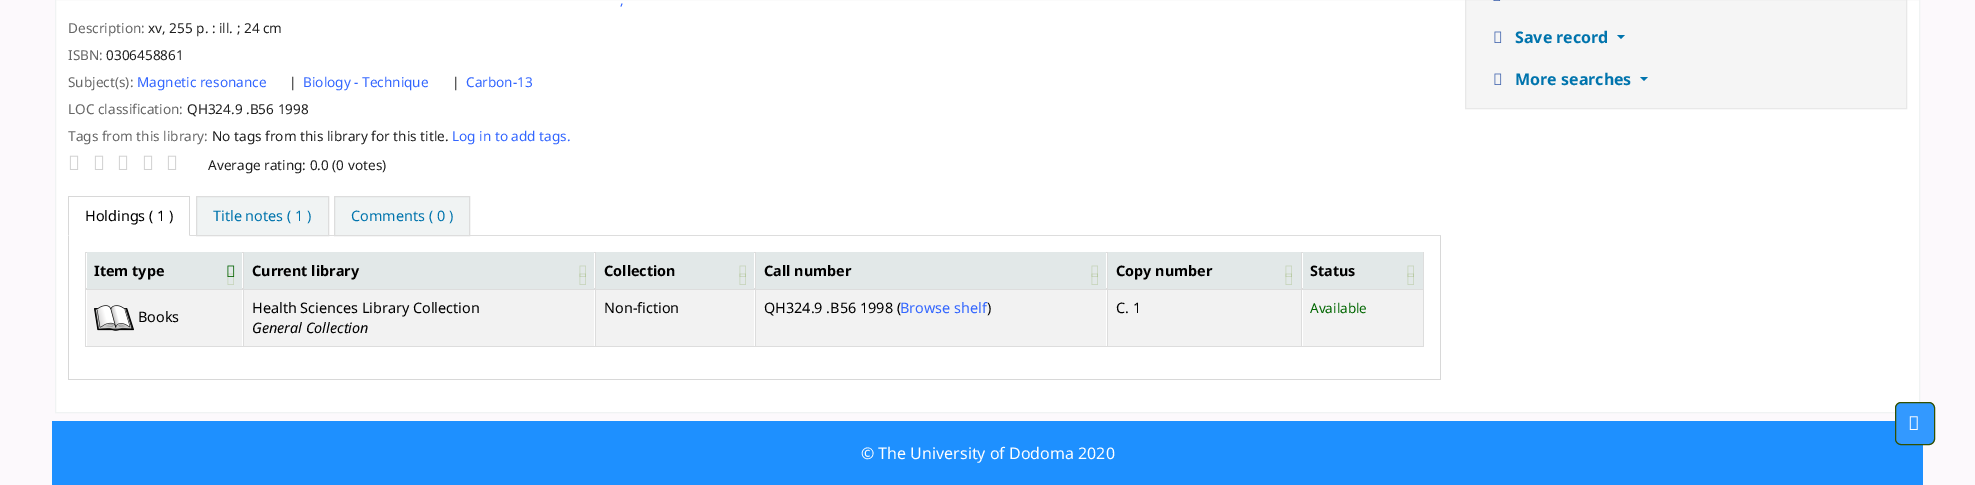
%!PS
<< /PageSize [1975 485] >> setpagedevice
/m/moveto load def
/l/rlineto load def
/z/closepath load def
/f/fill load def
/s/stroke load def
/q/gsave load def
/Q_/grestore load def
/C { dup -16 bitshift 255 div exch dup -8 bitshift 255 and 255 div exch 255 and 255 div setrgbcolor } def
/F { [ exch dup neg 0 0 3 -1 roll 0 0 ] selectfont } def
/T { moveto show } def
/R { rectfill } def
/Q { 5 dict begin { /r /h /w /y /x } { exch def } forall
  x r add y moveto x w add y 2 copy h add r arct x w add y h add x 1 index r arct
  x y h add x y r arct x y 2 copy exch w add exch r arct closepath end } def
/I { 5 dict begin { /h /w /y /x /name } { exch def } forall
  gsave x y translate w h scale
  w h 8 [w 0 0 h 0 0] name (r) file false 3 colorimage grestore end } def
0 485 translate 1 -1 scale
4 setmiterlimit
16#FCF9FC C
0 0 1975 485 R
16#FFFFFF C
55.5 -.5 m 1864 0 l 0 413 l -1864 0 l z q f Q_
16#F0F3F3 C
s
/NotoSans-Regular 13.6 F
16#3366FF C
(,) 620 5 T
16#666666 C
(Description:) 68 33 T
16#202020 C
(xv, 255 p. : ill. ; 24 cm) 148 33 T
16#666666 C
(ISBN:) 68 60 T
16#202020 C
(0306458861) 106 60 T
16#666666 C
(Subject\(s\):) 68 87 T
16#3366FF C
(Magnetic resonance) 137 87 T
16#202020 C
(|) 289 87 T
16#3366FF C
(Biology - Technique) 303 87 T
16#202020 C
(|) 452 87 T
16#3366FF C
(Carbon-13) 466 87 T
16#666666 C
(LOC classification:) 68 114 T
16#202020 C
(QH324.9 .B56 1998) 187 114 T
16#666666 C
(Tags from this library:) 68 141 T
16#202020 C
(No tags from this library for this title.) 212 141 T
16#3366FF C
(Log in to add tags.) 452 141 T
(1.rgb) 69 155 10 15 I
(1.rgb) 94 155 10 15 I
(1.rgb) 118 155 10 15 I
(1.rgb) 143 155 10 15 I
(1.rgb) 167 155 10 15 I
16#202020 C
(Average rating: 0.0 \(0 votes\)) 208 170 T
16#DDDDDD C
190 235 1251 1 R
16#D8D8D8 C
68 196 122 1 R
190 196 m 0 40 l -1 -1 l 0 -38 l z f
68 236 m 0 -40 l 1 1 l 0 38 l z f
/NotoSans-Regular 14.4 F
16#000000 C
(Holdings \( 1 \)) 85 221 T
16#F0F3F3 C
196.5 196.5 m 132 0 l 0 39 l -132 0 l z q f Q_
16#DDDDDD C
s
16#0074AD C
(Title notes \( 1 \)) 213 221 T
16#F0F3F3 C
334.5 196.5 m 135 0 l 0 39 l -135 0 l z q f Q_
16#DDDDDD C
s
16#0074AD C
(Comments \( 0 \)) 351 221 T
16#D8D8D8 C
1440 236 1 144 R
68 379 1373 1 R
68 236 1 144 R
16#DDDDDD C
85 252 1218 1 R
85 288 1218 1 R
16#E2E8E8 C
87 252 155 37 R
/NotoSans-Bold 14.4 F
16#000000 C
(Item type) 94 276 T
(2.rgb) 227 265 8 12 I
(3.rgb) 227 273 7 12 I
16#E2E8E8 C
244 252 350 37 R
16#000000 C
(Current library) 252 276 T
(4.rgb) 579 265 7 12 I
(5.rgb) 579 273 7 12 I
16#E2E8E8 C
596 252 158 37 R
16#000000 C
(Collection) 604 276 T
(4.rgb) 739 265 7 12 I
(5.rgb) 739 273 7 12 I
16#E2E8E8 C
756 252 350 37 R
16#000000 C
(Call number) 764 276 T
(4.rgb) 1091 265 7 12 I
(5.rgb) 1091 273 7 12 I
16#E2E8E8 C
1108 252 193 37 R
16#000000 C
(Copy number) 1116 276 T
(4.rgb) 1285 265 7 12 I
(5.rgb) 1285 273 7 12 I
16#E2E8E8 C
1303 252 120 37 R
16#000000 C
(Status) 1310 276 T
(4.rgb) 1407 265 7 12 I
(5.rgb) 1407 273 7 12 I
16#DDDDDD C
85 289 1339 1 R
85 346 1339 1 R
16#F2F2F2 C
244 290 350 56 R
16#DDDDDD C
243 252 1 95 R
/NotoSans-Regular 14.4 F
16#000000 C
(Health Sciences Library Collection) 252 313 T
/NotoSans-Italic 14.4 F
(General Collection) 252 333 T
16#F2F2F2 C
596 290 158 56 R
16#DDDDDD C
595 252 1 95 R
/NotoSans-Regular 14.4 F
16#000000 C
(Non-fiction) 604 313 T
16#F2F2F2 C
756 290 350 56 R
16#DDDDDD C
755 252 1 95 R
16#000000 C
(QH324.9 .B56 1998 \() 764 313 T
16#3366FF C
(Browse shelf) 900 313 T
16#000000 C
(\)) 987 313 T
16#F2F2F2 C
1108 290 193 56 R
16#DDDDDD C
1107 252 1 95 R
16#000000 C
(C. 1) 1116 313 T
16#F2F2F2 C
1303 290 120 56 R
16#DDDDDD C
1423 252 1 95 R
1301 252 1 95 R
/NotoSans-Regular 13.5 F
16#006600 C
(Available) 1310 313 T
16#F2F2F2 C
87 290 155 56 R
16#DDDDDD C
85 252 1 95 R
(6.rgb) 94 305 40 26 I
/NotoSans-Regular 14.4 F
16#000000 C
(Books) 138 322 T
16#F5F5F5 C
1465.5 -.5 m 441 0 l 0 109 l -441 0 l z q f Q_
16#E8E8E8 C
s
(7.rgb) 1493 0 8 1 I
(8.rgb) 1494 31 8 12 I
/NotoSans-Bold 16 F
16#0074AD C
(Save record) 1515 43 T
1617 35 m 8 0 l -4 4 l z f
(8.rgb) 1494 73 8 12 I
(More searches) 1515 85 T
1640 77 m 8 0 l -4 4 l z f
16#1E90FF C
52 421 1871 64 R
/NotoSans-Regular 16 F
16#FFFFFF C
(© The University of Dodoma 2020) 861 459 T
16#3399FF C
1895.5 402.5 39 42 5.5 Q q f Q_
16#335000 C
s
(9.rgb) 1909 416 9 14 I
showpage
